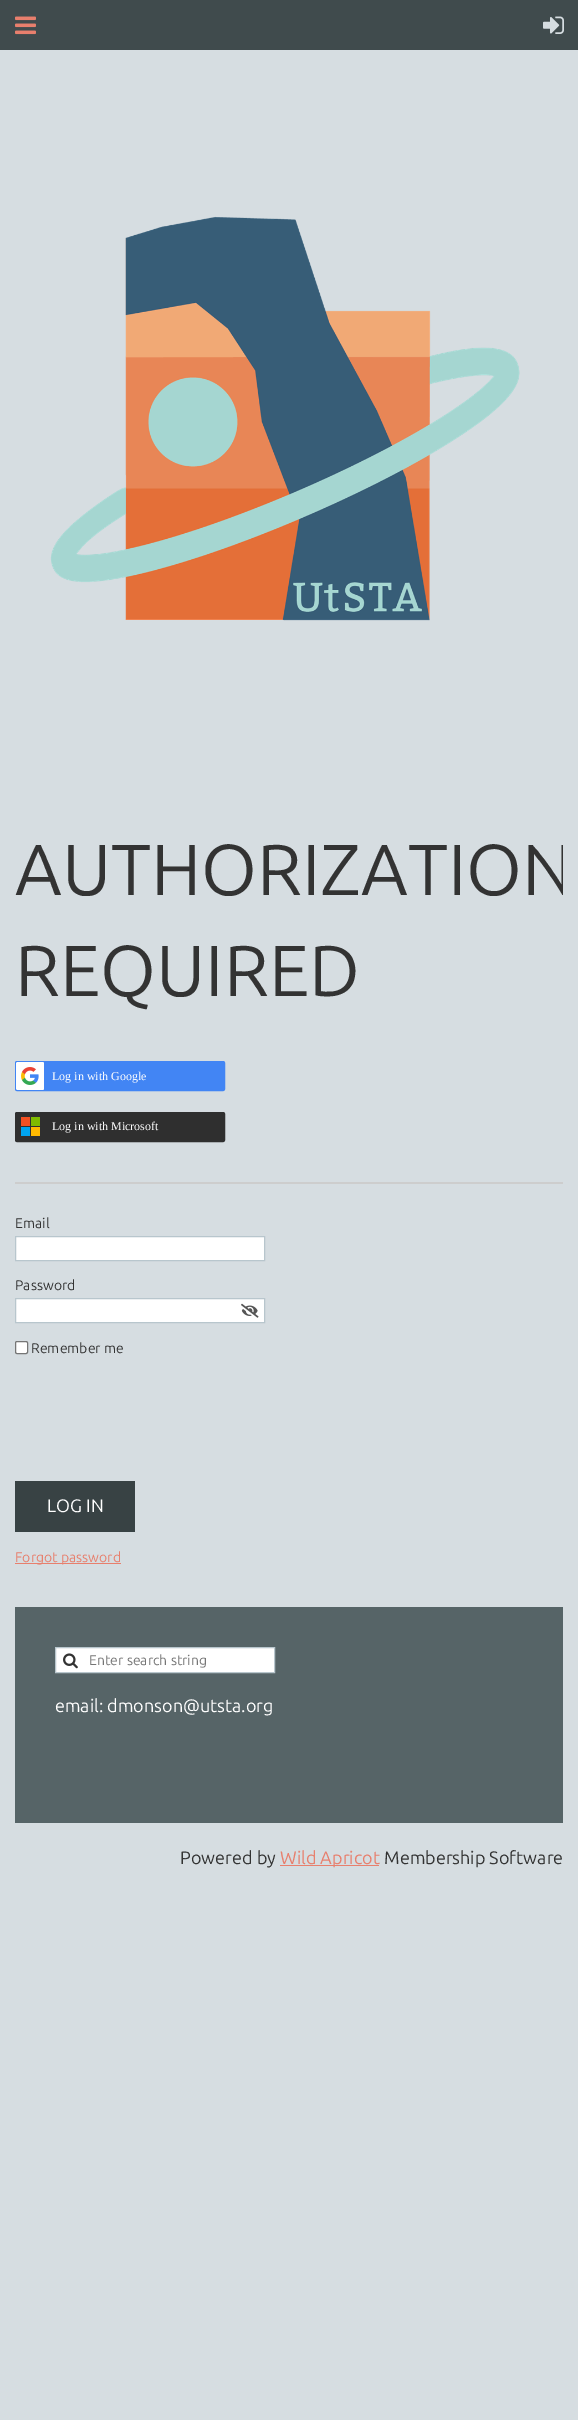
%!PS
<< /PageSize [578 2420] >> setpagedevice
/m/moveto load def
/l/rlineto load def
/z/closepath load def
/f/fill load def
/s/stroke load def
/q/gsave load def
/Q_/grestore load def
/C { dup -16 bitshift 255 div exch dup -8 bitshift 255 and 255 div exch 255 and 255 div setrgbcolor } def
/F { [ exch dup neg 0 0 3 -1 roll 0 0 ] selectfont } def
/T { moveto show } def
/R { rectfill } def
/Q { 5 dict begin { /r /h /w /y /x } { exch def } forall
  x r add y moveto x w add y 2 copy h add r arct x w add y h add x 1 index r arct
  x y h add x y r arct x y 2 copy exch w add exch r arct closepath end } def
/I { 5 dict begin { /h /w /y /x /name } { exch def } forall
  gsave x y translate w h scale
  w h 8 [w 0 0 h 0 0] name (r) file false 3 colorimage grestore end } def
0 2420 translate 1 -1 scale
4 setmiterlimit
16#D6DDE1 C
0 0 578 2420 R
16#404B4D C
0 0 578 50 R
(1.rgb) 15 16 21 19 I
(2.rgb) 543 16 21 18 I
(3.rgb) 50 216 470 405 I
q
15 819 548 202 rectclip
/Ubuntu-Regular 72 F
16#333333 C
(AUTHORIZATION) 15 895 T
Q_
/Ubuntu-Regular 72 F
16#333333 C
(REQUIRED) 15 996 T
16#4285F4 C
15.5 1061.5 209 29 1.5 Q q f Q_
s
(4.rgb) 16 1062 28 28 I
/LiberationSerif-Regular 12 F
16#FFFFFF C
(Log in with Google) 52 1080 T
16#2F2F2F C
15.5 1112.5 209 29 1.5 Q q f Q_
s
16#F25022 C
21 1117 9 9 R
16#00A4EF C
21 1127 9 9 R
16#7FBA00 C
31 1117 9 9 R
16#FFB900 C
31 1127 9 9 R
16#FFFFFF C
(Log in with Microsoft) 52 1130 T
16#CDCDCD C
15 1182 548 2 R
/Ubuntu-Regular 14 F
16#333333 C
(Email) 15 1228 T
16#FFFFFF C
15.5 1236.5 m 249 0 l 0 24 l -249 0 l z q f Q_
16#B8C6CD C
s
16#333333 C
(Password) 15 1290 T
16#FFFFFF C
15.5 1298.5 m 249 0 l 0 24 l -249 0 l z q f Q_
16#B8C6CD C
s
(5.rgb) 241 1303 18 15 I
16#FFFFFF C
15.5 1341.5 12 12 1.5 Q q f Q_
16#767676 C
s
16#333333 C
(Remember me) 31 1353 T
16#384244 C
15 1481 120 51 R
/Ubuntu-Regular 18 F
16#FFFFFF C
(LOG IN) 47 1512 T
16#E87F6D C
15 1563 106 1 R
/Ubuntu-Regular 14 F
(Forgot password) 15 1562 T
16#566467 C
15 1607 548 216 R
16#FFFFFF C
55.5 1647.5 m 219 0 l 0 25 l -219 0 l z q f Q_
16#B8C6CD C
s
(6.rgb) 63 1653 15 16 I
16#757575 C
(Enter search string) 89 1665 T
/Ubuntu-Regular 18 F
16#FFFFFF C
(email: dmonson@utsta.org) 55 1712 T
16#333333 C
(Powered by) 180 1864 T
16#E87F6D C
280 1865 99 1 R
(Wild Apricot) 280 1864 T
16#333333 C
(Membership Software) 384 1864 T
showpage
